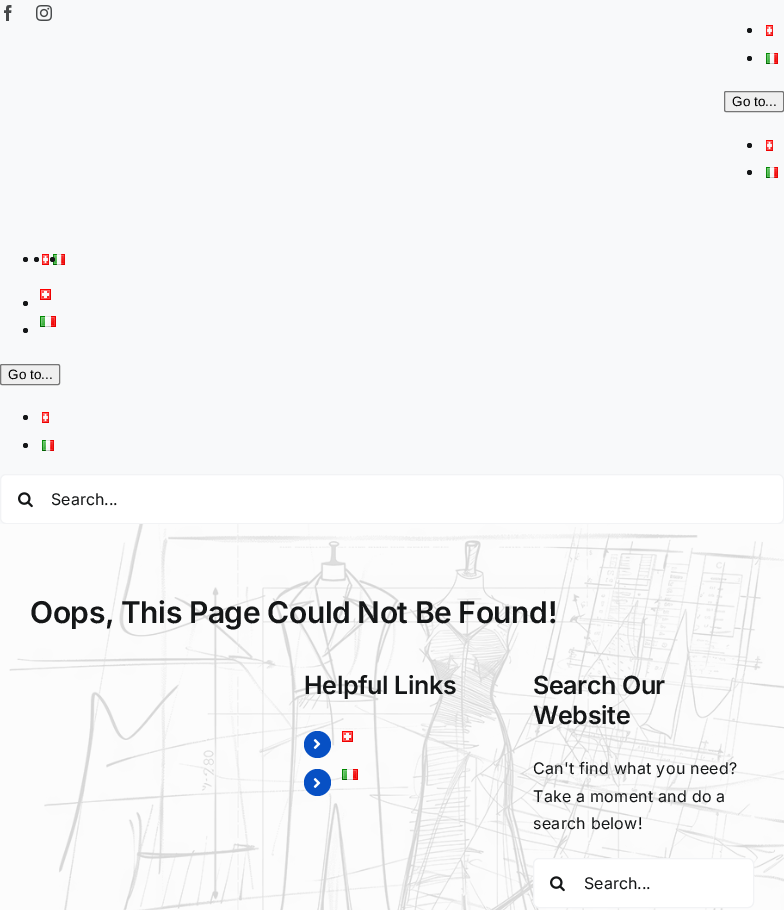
%!PS
<< /PageSize [784 910] >> setpagedevice
/m/moveto load def
/f/fill load def
/s/stroke load def
/q/gsave load def
/Q_/grestore load def
/C { dup -16 bitshift 255 div exch dup -8 bitshift 255 and 255 div exch 255 and 255 div setrgbcolor } def
/F { [ exch dup neg 0 0 3 -1 roll 0 0 ] selectfont } def
/T { moveto show } def
/R { rectfill } def
/O { newpath 0 360 arc closepath } def
/Q { 5 dict begin { /r /h /w /y /x } { exch def } forall
  x r add y moveto x w add y 2 copy h add r arct x w add y h add x 1 index r arct
  x y h add x y r arct x y 2 copy exch w add exch r arct closepath end } def
/I { 5 dict begin { /h /w /y /x /name } { exch def } forall
  gsave x y translate w h scale
  w h 8 [w 0 0 h 0 0] name (r) file false 3 colorimage grestore end } def
0 910 translate 1 -1 scale
4 setmiterlimit
16#F8F9FA C
0 0 784 910 R
(1.rgb) 4 5 8 16 I
(2.rgb) 36 5 16 16 I
16#141617 C
749.5 30.5 2.5 O f
(3.rgb) 766 25 7 11 I
749.5 58.5 2.5 O f
(4.rgb) 766 53 12 11 I
16#EFEFEF C
724.5 91.5 59 20 1.5 Q q f Q_
16#767676 C
s
/LiberationSans-Regular 13.5 F
16#000000 C
(Go to...) 732 106 T
16#141617 C
749.5 145.5 2.5 O f
(3.rgb) 766 140 7 11 I
749.5 172.5 2.5 O f
(4.rgb) 766 167 12 11 I
25.5 259.5 2.5 O f
(3.rgb) 42 254 7 11 I
36.5 259.5 2.5 O f
(5.rgb) 53 254 12 11 I
52.5 259.5 2.5 O f
(6.rgb) 40 289 11 11 I
25.5 303.5 2.5 O f
(7.rgb) 40 316 16 11 I
25.5 330.5 2.5 O f
16#EFEFEF C
.5 364.5 59 20 1.5 Q q f Q_
16#767676 C
s
16#000000 C
(Go to...) 8 379 T
16#141617 C
25.5 417.5 2.5 O f
(3.rgb) 42 412 7 11 I
25.5 445.5 2.5 O f
(8.rgb) 42 440 12 11 I
16#FFFFFF C
.5 474.5 783 49 5.5 Q q f Q_
16#F2F3F5 C
s
(9.rgb) 18 492 15 16 I
/Inter-Regular 16 F
16#141617 C
(Search...) 51 505 T
16#FCFCFC C
0 524 784 386 R
(10.rgb) 9 524 775 386 I
/Inter-SemiBold 30 F
16#141617 C
30 623 m -.45 0 (Oops, This Page Could Not Be Found!) ashow
/Inter-SemiBold 25 F
304 694 m -.4 0 (Helpful Links) ashow
16#0750C4 C
317.5 744.5 13.5 O f
(11.rgb) 313 739 8 10 I
(6.rgb) 342 731 11 11 I
317.5 782.5 13.5 O f
(11.rgb) 313 778 8 10 I
(7.rgb) 342 769 16 11 I
16#141617 C
533 694 m -.4 0 (Search Our) ashow
533 724 m -.4 0 (Website) ashow
/Inter-Regular 16 F
533 774 m .25 0 (Can't find what you need?) ashow
533 802 m .25 0 (Take a moment and do a) ashow
533 829 m .25 0 (search below!) ashow
16#FFFFFF C
533.5 858.5 220 49 5.5 Q q f Q_
16#F2F3F5 C
s
(9.rgb) 550 876 15 16 I
16#141617 C
(Search...) 584 889 T
showpage
